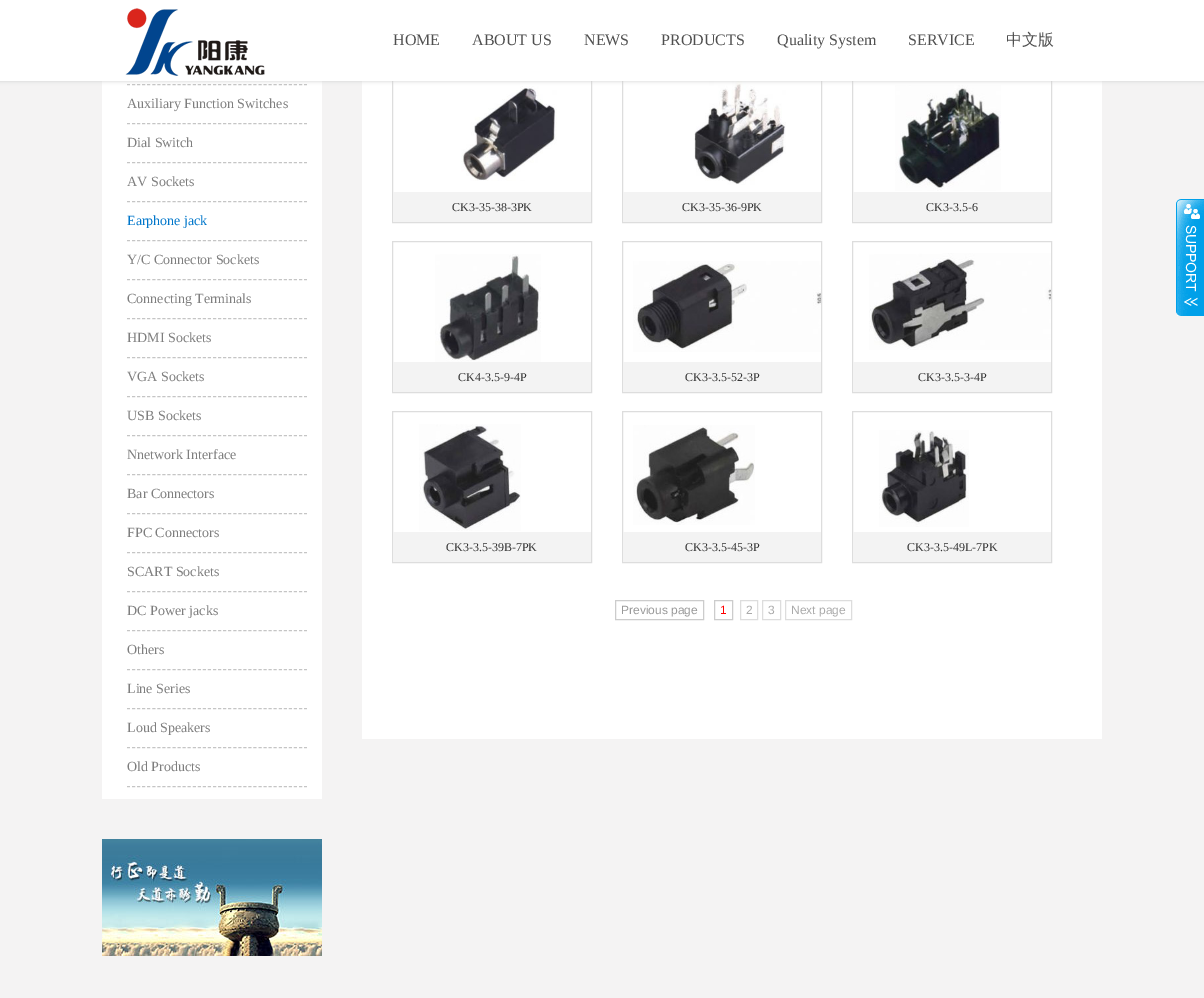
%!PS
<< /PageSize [1204 998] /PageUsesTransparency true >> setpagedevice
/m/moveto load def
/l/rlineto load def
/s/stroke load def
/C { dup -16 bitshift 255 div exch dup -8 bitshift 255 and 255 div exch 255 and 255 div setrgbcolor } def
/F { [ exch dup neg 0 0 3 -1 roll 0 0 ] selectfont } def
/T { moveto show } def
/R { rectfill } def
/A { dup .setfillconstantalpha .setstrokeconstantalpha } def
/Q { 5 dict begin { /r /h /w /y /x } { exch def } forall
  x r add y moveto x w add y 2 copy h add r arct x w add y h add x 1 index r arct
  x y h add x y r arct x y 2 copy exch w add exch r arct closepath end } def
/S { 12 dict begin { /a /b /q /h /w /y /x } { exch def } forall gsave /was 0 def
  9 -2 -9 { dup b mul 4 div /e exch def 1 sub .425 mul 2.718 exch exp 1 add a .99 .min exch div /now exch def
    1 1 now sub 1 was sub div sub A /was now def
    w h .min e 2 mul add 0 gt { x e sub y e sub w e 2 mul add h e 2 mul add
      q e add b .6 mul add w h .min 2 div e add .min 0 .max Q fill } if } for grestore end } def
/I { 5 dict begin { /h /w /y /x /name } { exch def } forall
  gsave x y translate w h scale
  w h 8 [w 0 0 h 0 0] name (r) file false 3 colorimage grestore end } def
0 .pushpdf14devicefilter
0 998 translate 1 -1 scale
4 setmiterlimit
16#F4F3F3 C
0 0 1204 998 R
16#FFFFFF C
102 81 220 718 R
16#C5C5C5 C
[3 2.06] 0 setdash
127 84.5 m 180 0 l s
16#FFFFFF C
362 81 740 658 R
16#DDDDDD C
[] 0 setdash
392.5 71.5 199 151 rectstroke
(3.rgb) 461 86 96 95 I
622.5 71.5 199 151 rectstroke
(4.rgb) 694 81 92 104 I
852.5 71.5 199 151 rectstroke
(5.rgb) 895 85 106 106 I
16#CCCCCC C
0 0 1204 81 0 2 1 S
16#FFFFFF C
0 0 1204 81 R
(1.rgb) 125 8 140 68 I
/LiberationSerif-Regular 16 F
16#4F4F4F C
(HOME) 393 45 T
(ABOUT US) 472 45 T
(NEWS) 584 45 T
(PRODUCTS) 661 45 T
(Quality System) 777 45 T
(SERVICE) 908 45 T
/WenQuanYiZenHei-Medium 16 F
(中文版) 1006 45 T
16#C5C5C5 C
[3 2.06] 0 setdash
127 123.5 m 180 0 l s
/LiberationSerif-Regular 14 F
16#7E7E7E C
(Auxiliary Function Switches) 127 108 T
16#C5C5C5 C
127 162.5 m 180 0 l s
16#7E7E7E C
(Dial Switch) 127 147 T
16#C5C5C5 C
127 201.5 m 180 0 l s
16#7E7E7E C
(AV Sockets) 127 186 T
16#C5C5C5 C
127 240.5 m 180 0 l s
16#0076CA C
(Earphone jack) 127 225 T
16#C5C5C5 C
127 279.5 m 180 0 l s
16#7E7E7E C
(Y/C Connector Sockets) 127 264 T
16#C5C5C5 C
127 318.5 m 180 0 l s
16#7E7E7E C
(Connecting Terminals) 127 303 T
16#C5C5C5 C
127 357.5 m 180 0 l s
16#7E7E7E C
(HDMI Sockets) 127 342 T
16#C5C5C5 C
127 396.5 m 180 0 l s
16#7E7E7E C
(VGA Sockets) 127 381 T
16#C5C5C5 C
127 435.5 m 180 0 l s
16#7E7E7E C
(USB Sockets) 127 420 T
16#C5C5C5 C
127 474.5 m 180 0 l s
16#7E7E7E C
(Nnetwork Interface) 127 459 T
16#C5C5C5 C
127 513.5 m 180 0 l s
16#7E7E7E C
(Bar Connectors) 127 498 T
16#C5C5C5 C
127 552.5 m 180 0 l s
16#7E7E7E C
(FPC Connectors) 127 537 T
16#C5C5C5 C
127 591.5 m 180 0 l s
16#7E7E7E C
(SCART Sockets) 127 576 T
16#C5C5C5 C
127 630.5 m 180 0 l s
16#7E7E7E C
(DC Power jacks) 127 615 T
16#C5C5C5 C
127 669.5 m 180 0 l s
16#7E7E7E C
(Others) 127 654 T
16#C5C5C5 C
127 708.5 m 180 0 l s
16#7E7E7E C
(Line Series) 127 693 T
16#C5C5C5 C
127 747.5 m 180 0 l s
16#7E7E7E C
(Loud Speakers) 127 732 T
16#C5C5C5 C
127 786.5 m 180 0 l s
16#7E7E7E C
(Old Products) 127 771 T
(2.rgb) 102 839 220 117 I
16#F3F3F3 C
393 192 198 30 R
/LiberationSerif-Regular 12 F
16#333333 C
(CK3-35-38-3PK) 452 211 T
16#F3F3F3 C
623 192 198 30 R
16#333333 C
(CK3-35-36-9PK) 682 211 T
16#F3F3F3 C
853 192 198 30 R
16#333333 C
(CK3-3.5-6) 926 211 T
16#DDDDDD C
[] 0 setdash
392.5 241.5 199 151 rectstroke
(6.rgb) 435 254 106 108 I
16#F3F3F3 C
393 362 198 30 R
16#333333 C
(CK4-3.5-9-4P) 458 381 T
16#DDDDDD C
622.5 241.5 199 151 rectstroke
(7.rgb) 633 261 188 91 I
16#F3F3F3 C
623 362 198 30 R
16#333333 C
(CK3-3.5-52-3P) 685 381 T
16#DDDDDD C
852.5 241.5 199 151 rectstroke
(8.rgb) 869 253 182 97 I
16#F3F3F3 C
853 362 198 30 R
16#333333 C
(CK3-3.5-3-4P) 918 381 T
16#DDDDDD C
392.5 411.5 199 151 rectstroke
(9.rgb) 419 424 102 107 I
16#F3F3F3 C
393 532 198 30 R
16#333333 C
(CK3-3.5-39B-7PK) 446 551 T
16#DDDDDD C
622.5 411.5 199 151 rectstroke
(10.rgb) 633 425 122 100 I
16#F3F3F3 C
623 532 198 30 R
16#333333 C
(CK3-3.5-45-3P) 685 551 T
16#DDDDDD C
852.5 411.5 199 151 rectstroke
(11.rgb) 879 430 90 97 I
16#F3F3F3 C
853 532 198 30 R
16#333333 C
(CK3-3.5-49L-7PK) 907 551 T
16#CCCCCC C
615.5 600.5 88 19 rectstroke
/LiberationSans-Regular 12 F
16#999999 C
(Previous page) 621 614 T
16#CCCCCC C
714.5 600.5 18 19 rectstroke
16#FF0000 C
(1) 720 614 T
16#DDDDDD C
740.5 600.5 17 19 rectstroke
16#AAAAAA C
(2) 746 614 T
16#DDDDDD C
762.5 600.5 18 19 rectstroke
16#AAAAAA C
(3) 768 614 T
16#DDDDDD C
785.5 600.5 66 19 rectstroke
16#AAAAAA C
(Next page) 791 614 T
(12.rgb) 1176 199 28 117 I
.poppdf14devicefilter showpage
